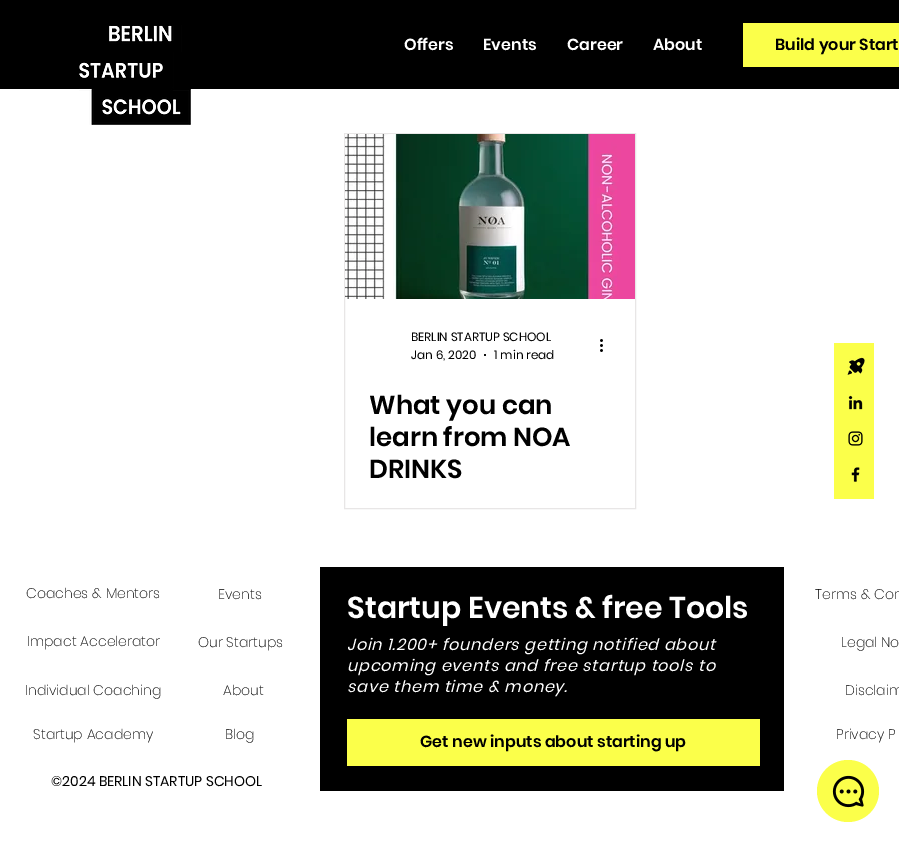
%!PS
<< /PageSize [899 842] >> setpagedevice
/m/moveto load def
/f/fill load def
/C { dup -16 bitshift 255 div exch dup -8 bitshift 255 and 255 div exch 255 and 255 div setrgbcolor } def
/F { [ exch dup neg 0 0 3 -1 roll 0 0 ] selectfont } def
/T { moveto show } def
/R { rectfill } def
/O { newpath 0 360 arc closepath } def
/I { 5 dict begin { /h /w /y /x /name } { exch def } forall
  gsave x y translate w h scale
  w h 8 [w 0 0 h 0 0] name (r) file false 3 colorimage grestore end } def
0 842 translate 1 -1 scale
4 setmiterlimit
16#FFFFFF C
0 0 899 842 R
16#000000 C
0 0 899 89 R
(1.rgb) 79 25 112 100 I
/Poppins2-SemiBold 16 F
16#FFFFFF C
(Offers) 404 50 T
(Events) 483 50 T
(Career) 567 50 T
(About) 653 50 T
16#FBFF4A C
743 23 156 44 R
/Poppins-SemiBold 16 F
16#000000 C
(Build your Start) 775 50 T
16#E8E6E6 C
344.5 133.5 291 375 rectstroke
(2.rgb) 345 134 290 165 I
/Poppins-Regular 12 F
16#000000 C
(BERLIN STARTUP SCHOOL) 411 341 T
(Jan 6, 2020) 411 359 T
485 355 1 O f
(1 min read) 494 359 T
(3.rgb) 600 339 3 13 I
/Poppins-SemiBold 26 F
(What you can) 369 414 T
(learn from NOA) 369 446 T
(DRINKS) 369 478 T
16#FBFF4A C
834 343 40 156 R
(4.rgb) 847 357 18 18 I
(5.rgb) 848 395 15 15 I
(6.rgb) 848 431 15 15 I
(7.rgb) 851 467 9 15 I
/Poppins-ExtraLight 14 F
16#000000 C
(Coaches & Mentors) 26 598 T
(Events) 218 599 T
320 567 464 224 R
/Poppins-SemiBold 30 F
16#FFFFFF C
(Startup Events & free Tools) 347 618 T
/Poppins-Italic 16 F
347 650 m .8 0 (Join 1.200+ founders getting notified about) ashow
347 671 m .8 0 (upcoming events and free startup tools to) ashow
347 692 m .8 0 (save them time & money.) ashow
16#FBFF4A C
347 719 413 47 R
/Poppins-SemiBold 16 F
16#000000 C
(Get new inputs about starting up) 420 747 T
/Poppins-ExtraLight 14 F
(Terms & Con) 815 599 T
(Impact Accelerator) 27 646 T
(Our Startups) 198 647 T
(Legal No) 841 647 T
(Individual Coaching) 25 695 T
(About) 223 695 T
(Disclaim) 845 695 T
(Startup Academy) 33 739 T
(Blog) 225 739 T
(Privacy P) 836 739 T
/Poppins2-Regular 14 F
(©2024 BERLIN STARTUP SCHOOL) 51 786 T
16#FBFF4A C
848 791 31 O f
(8.rgb) 832 775 33 33 I
showpage
